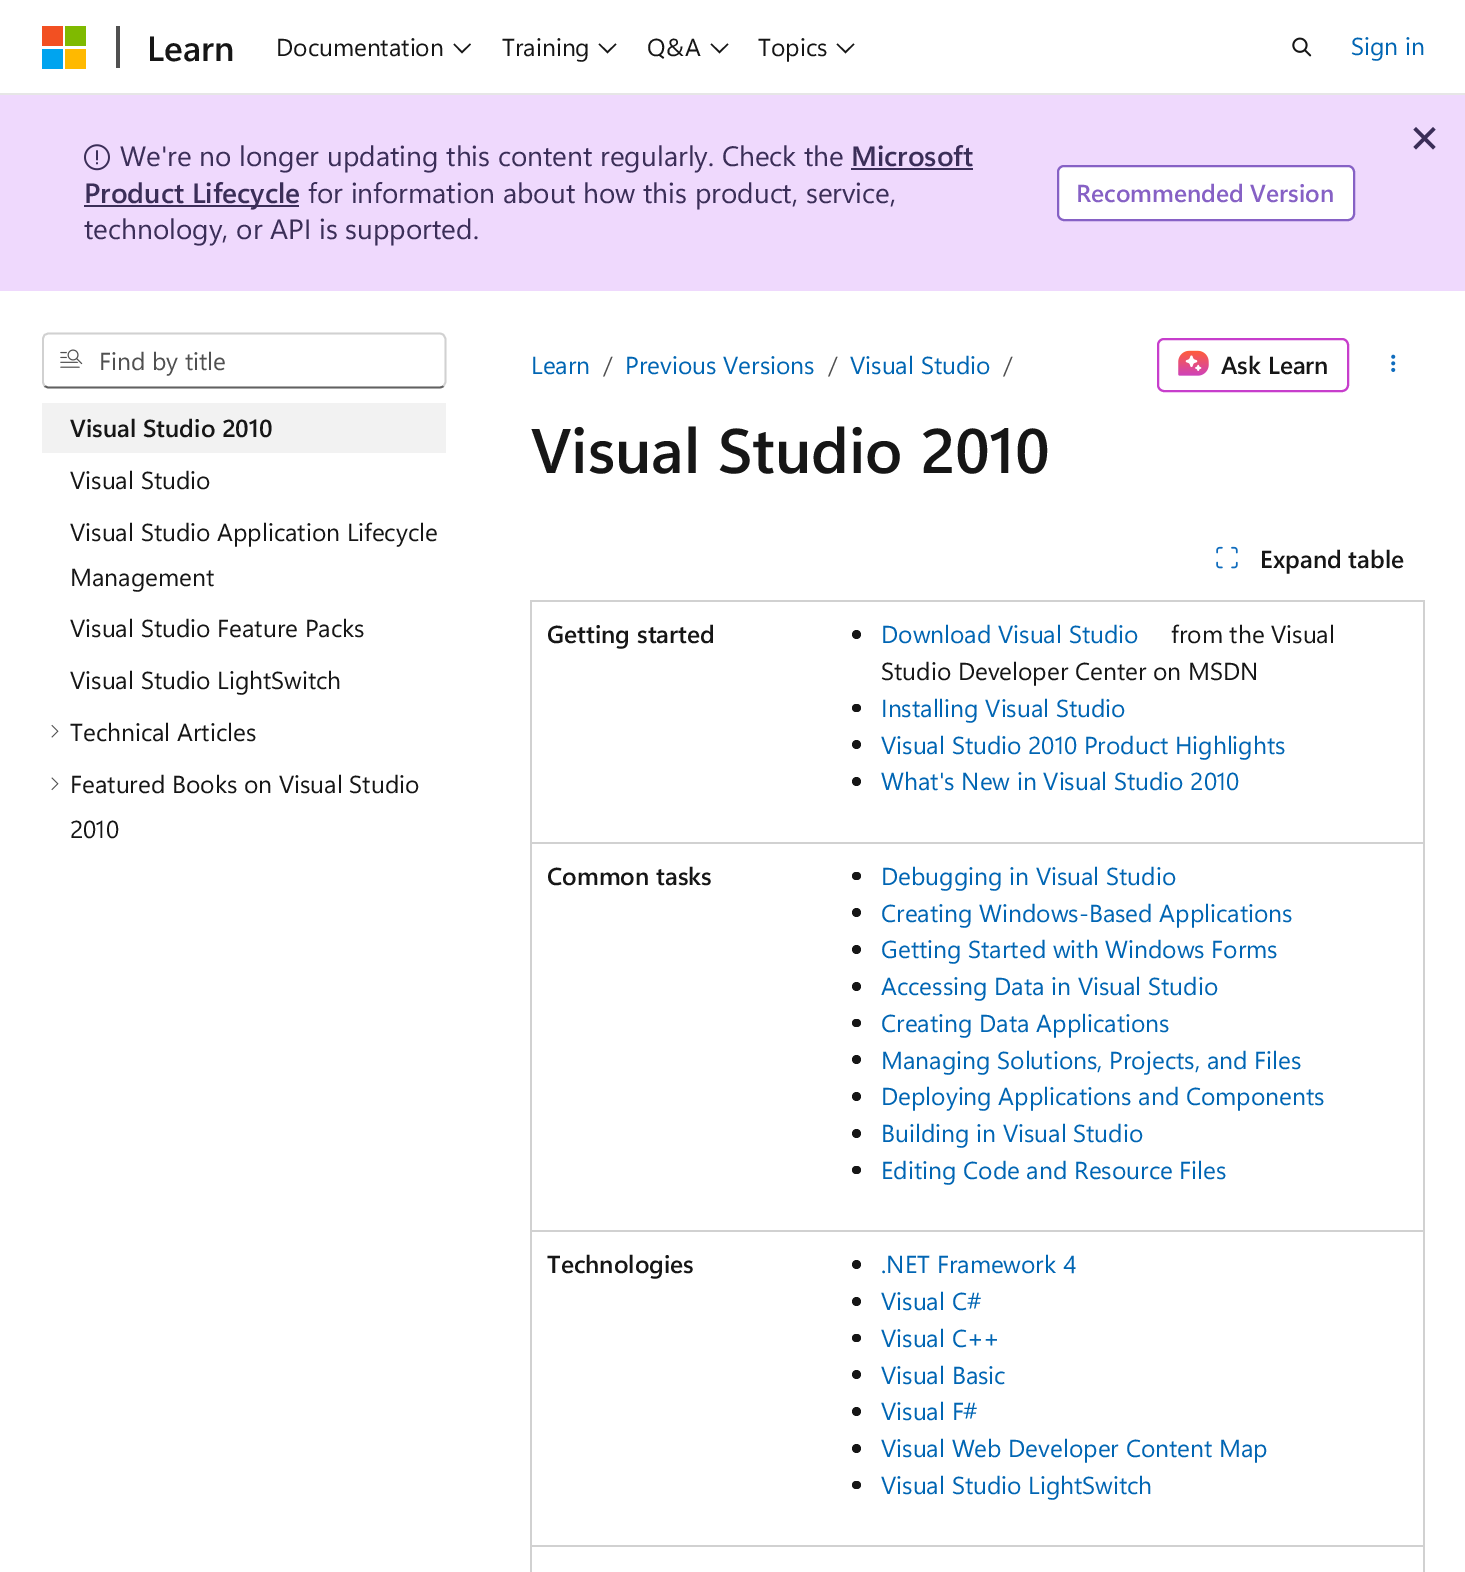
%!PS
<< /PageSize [1465 1572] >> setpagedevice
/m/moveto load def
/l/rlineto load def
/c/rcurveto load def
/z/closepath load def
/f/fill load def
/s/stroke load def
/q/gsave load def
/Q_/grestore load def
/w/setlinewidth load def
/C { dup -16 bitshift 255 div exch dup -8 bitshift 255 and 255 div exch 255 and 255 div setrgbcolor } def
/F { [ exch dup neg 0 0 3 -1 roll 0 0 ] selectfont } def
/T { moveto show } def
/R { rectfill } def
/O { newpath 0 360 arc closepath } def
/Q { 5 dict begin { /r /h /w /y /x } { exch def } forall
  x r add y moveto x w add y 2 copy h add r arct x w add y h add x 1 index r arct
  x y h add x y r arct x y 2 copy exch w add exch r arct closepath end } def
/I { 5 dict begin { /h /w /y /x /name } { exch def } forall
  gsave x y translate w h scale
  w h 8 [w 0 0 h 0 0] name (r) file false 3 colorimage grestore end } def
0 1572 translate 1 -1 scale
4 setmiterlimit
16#FFFFFF C
0 0 1465 1572 R
16#E6E6E6 C
0 93 1465 2 R
16#F25022 C
42 26 21 20 R
16#7FBA00 C
65 26 21 20 R
16#00A4EF C
42 49 21 20 R
16#FFB900 C
65 49 21 20 R
16#505050 C
116 26 4 42 R
/SegoeUI-SemiBold 35 F
16#161616 C
(Learn) 147 61 T
/SegoeUI-Regular 24.5 F
(Documentation) 276 56 T
462 53.5 m -8.5 -9 l 1 -1 l 7.5 7.5 l 8 -7.5 l 1 1 l z f
(Training) 502 56 T
607.5 53.5 m -9 -9 l 1 -1 l 8 7.5 l 8 -7.5 l 1 1 l z f
(Q&A) 647 56 T
719.5 53.5 m -9 -9 l 1 -1 l 8 7.5 l 8 -7.5 l 1 1 l z f
(Topics) 758 56 T
845.5 53.5 m -9 -9 l 1 -1 l 8 7.5 l 8 -7.5 l 1 1 l z f
(1.rgb) 1292 37 20 20 I
16#0065B3 C
(Sign in) 1351 55 T
16#EFD9FD C
0 95 1465 196 R
16#3B2E58 C
1416 127 m 19.5 20 l -2.5 2.5 l -19.5 -20 l z f
1433 127 m 2.5 2.5 l -19.5 20 l -2.5 -2.5 l z f
(2.rgb) 84 144 26 27 I
/SegoeUI-Regular 28 F
(We're no longer updating this content regularly. Check the) 120 166 T
/SegoeUI-SemiBold 28 F
(Microsoft) 851 166 T
851 168 122 2 R
84 205 215 2 R
(Product Lifecycle) 84 203 T
/SegoeUI-Regular 28 F
(for information about how this product, service,) 308 203 T
(technology, or API is supported.) 84 239 T
16#FFFFFF C
1058 166 296 54 6 Q q f Q_
16#8661C5 C
2 w
s
/SegoeUI-SemiBold 24.5 F
(Recommended Version) 1076 202 T
16#616161 C
1.8 w
443.5 386 m -1 1 -2.5 1.5 -4.5 1.5 c -390 0 l -1.5 0 -3 -.5 -4.5 -1.5 c s
16#D1D1D1 C
44.5 386 m -1 -1.5 -1.5 -3 -1.5 -4.5 c 0 -42 l 0 -1.5 .5 -3 1.5 -4.5 c 1.5 -1 3 -1.5 4.5 -1.5 c 390 0 l 2 0 3.5 .5 4.5 1.5 c 1 1.5 2 3 2 4.5 c 0 42 l 0 1.5 -1 3 -2 4.5 c s
(3.rgb) 60 349 23 19 I
/SegoeUI-Regular 24.5 F
16#505050 C
(Find by title) 99 370 T
16#F2F2F2 C
42 403 404 50 R
/SegoeUI-SemiBold 24.5 F
16#161616 C
(Visual Studio 2010) 70 437 T
/SegoeUI-Regular 24.5 F
(Visual Studio) 70 489 T
(Visual Studio Application Lifecycle) 70 541 T
(Management) 70 586 T
(Visual Studio Feature Packs) 70 637 T
(Visual Studio LightSwitch) 70 689 T
(4.rgb) 51 724 8 14 I
(Technical Articles) 70 741 T
(5.rgb) 51 777 8 14 I
(Featured Books on Visual Studio) 70 793 T
(2010) 70 838 T
16#0065B3 C
(Learn) 531 374 T
16#505050 C
(/) 603 374 T
16#0065B3 C
(Previous Versions) 625 374 T
16#505050 C
(/) 828 374 T
16#0065B3 C
(Visual Studio) 850 374 T
16#505050 C
(/) 1003 374 T
16#C73ECC C
2 w
1158 339 190 52 6 Q s
(6.rgb) 1178 350 31 26 I
/SegoeUI-SemiBold 24.5 F
16#161616 C
(Ask Learn) 1221 374 T
(7.rgb) 1391 354 5 18 I
/SegoeUI-SemiBold 62.75 F
(Visual Studio 2010) 531 473 T
(8.rgb) 1216 546 22 23 I
/SegoeUI-SemiBold 24.5 F
(Expand table) 1260 568 T
16#D1D1D1 C
530 600 895 2 R
1423 600 2 972 R
530 600 2 972 R
16#161616 C
(Getting started) 547 643 T
856.5 634.5 4.5 O f
/SegoeUI-Regular 24.5 F
16#0065B3 C
(Download Visual Studio) 881 643 T
16#161616 C
(from the Visual) 1171 643 T
(Studio Developer Center on MSDN) 881 680 T
852 704 9 8 4 Q f
16#0065B3 C
(Installing Visual Studio) 881 717 T
16#161616 C
856.5 744.5 4.5 O f
16#0065B3 C
(Visual Studio 2010 Product Highlights) 881 754 T
16#161616 C
856.5 781.5 4.5 O f
16#0065B3 C
(What's New in Visual Studio 2010) 881 790 T
/SegoeUI-SemiBold 24.5 F
16#161616 C
(Common tasks) 547 885 T
16#D1D1D1 C
530 842 895 2 R
16#161616 C
852 872 9 8 4 Q f
/SegoeUI-Regular 24.5 F
16#0065B3 C
(Debugging in Visual Studio) 881 885 T
16#161616 C
856.5 912.5 4.5 O f
16#0065B3 C
(Creating Windows-Based Applications) 881 922 T
16#161616 C
856.5 949.5 4.5 O f
16#0065B3 C
(Getting Started with Windows Forms) 881 958 T
16#161616 C
856.5 986.5 4.5 O f
16#0065B3 C
(Accessing Data in Visual Studio) 881 995 T
16#161616 C
852 1019 9 8 4 Q f
16#0065B3 C
(Creating Data Applications) 881 1032 T
16#161616 C
856.5 1059.5 4.5 O f
16#0065B3 C
(Managing Solutions, Projects, and Files) 881 1069 T
16#161616 C
856.5 1096.5 4.5 O f
16#0065B3 C
(Deploying Applications and Components) 881 1105 T
16#161616 C
856.5 1133.5 4.5 O f
16#0065B3 C
(Building in Visual Studio) 881 1142 T
16#161616 C
852 1166 9 8 4 Q f
16#0065B3 C
(Editing Code and Resource Files) 881 1179 T
/SegoeUI-SemiBold 24.5 F
16#161616 C
(Technologies) 547 1273 T
16#D1D1D1 C
530 1230 895 2 R
16#161616 C
856.5 1264.5 4.5 O f
/SegoeUI-Regular 24.5 F
16#0065B3 C
(.NET Framework 4) 881 1273 T
16#161616 C
856.5 1301.5 4.5 O f
16#0065B3 C
(Visual C#) 881 1310 T
16#161616 C
852 1334 9 8 4 Q f
16#0065B3 C
(Visual C++) 881 1347 T
16#161616 C
856.5 1374.5 4.5 O f
16#0065B3 C
(Visual Basic) 881 1384 T
16#161616 C
856.5 1411.5 4.5 O f
16#0065B3 C
(Visual F#) 881 1420 T
16#161616 C
856.5 1448.5 4.5 O f
16#0065B3 C
(Visual Web Developer Content Map) 881 1457 T
16#161616 C
852 1481 9 8 4 Q f
16#0065B3 C
(Visual Studio LightSwitch) 881 1494 T
16#D1D1D1 C
530 1545 895 2 R
showpage
